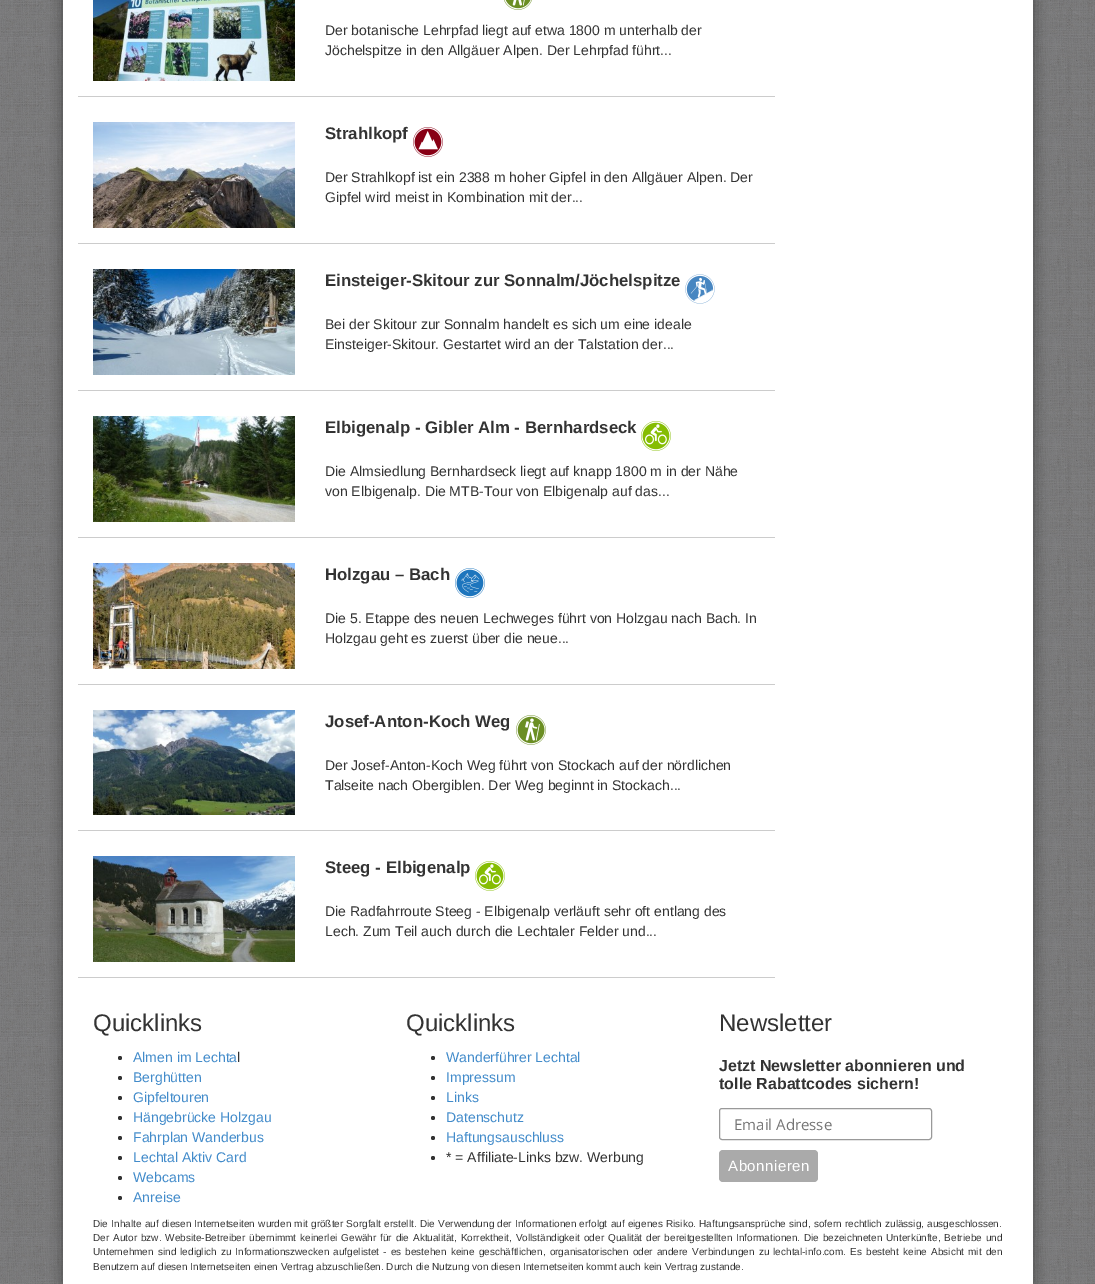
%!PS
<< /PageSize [1095 1284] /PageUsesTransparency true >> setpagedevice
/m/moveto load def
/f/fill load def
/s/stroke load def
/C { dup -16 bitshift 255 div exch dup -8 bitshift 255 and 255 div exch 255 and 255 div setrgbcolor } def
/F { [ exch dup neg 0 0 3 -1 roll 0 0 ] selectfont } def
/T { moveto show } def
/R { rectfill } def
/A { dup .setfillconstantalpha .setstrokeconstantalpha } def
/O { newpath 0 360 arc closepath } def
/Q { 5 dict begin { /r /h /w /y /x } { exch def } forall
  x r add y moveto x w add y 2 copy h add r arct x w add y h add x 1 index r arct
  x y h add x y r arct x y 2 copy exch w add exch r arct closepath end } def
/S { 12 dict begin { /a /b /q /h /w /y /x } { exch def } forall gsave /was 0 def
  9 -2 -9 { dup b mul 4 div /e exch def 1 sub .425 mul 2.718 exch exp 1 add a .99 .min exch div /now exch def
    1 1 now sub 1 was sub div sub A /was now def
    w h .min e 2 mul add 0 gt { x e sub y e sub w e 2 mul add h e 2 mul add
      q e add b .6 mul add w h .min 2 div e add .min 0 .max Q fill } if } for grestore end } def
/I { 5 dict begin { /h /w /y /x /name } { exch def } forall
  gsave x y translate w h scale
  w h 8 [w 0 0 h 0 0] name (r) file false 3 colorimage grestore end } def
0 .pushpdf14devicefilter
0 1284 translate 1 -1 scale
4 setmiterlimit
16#FFFFFF C
0 0 1095 1284 R
(1.rgb) 0 0 1095 1284 I
16#494949 C
63 -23 970 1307 0 7.5 1 S
16#FFFFFF C
63 0 970 1284 R
16#CCCCCC C
78 96 697 1 R
(2.rgb) 93 0 202 81 I
(3.rgb) 504 0 28 10 I
/LiberationSans-Regular 14 F
16#333333 C
(Der botanische Lehrpfad liegt auf etwa 1800 m unterhalb der) 325 35 T
(Jöchelspitze in den Allgäuer Alpen. Der Lehrpfad führt...) 325 55 T
16#CCCCCC C
78 243 697 1 R
(4.rgb) 93 122 202 106 I
/LiberationSans-Bold 16.8 F
16#333333 C
(Strahlkopf) 325 139 T
(5.rgb) 413 127 30 30 I
/LiberationSans-Regular 14 F
(Der Strahlkopf ist ein 2388 m hoher Gipfel in den Allgäuer Alpen. Der) 325 182 T
(Gipfel wird meist in Kombination mit der...) 325 202 T
16#CCCCCC C
78 390 697 1 R
(6.rgb) 93 269 202 106 I
/LiberationSans-Bold 16.8 F
16#333333 C
(Einsteiger-Skitour zur Sonnalm/Jöchelspitze) 325 286 T
(7.rgb) 685 274 30 30 I
/LiberationSans-Regular 14 F
(Bei der Skitour zur Sonnalm handelt es sich um eine ideale) 325 329 T
(Einsteiger-Skitour. Gestartet wird an der Talstation der...) 325 349 T
16#CCCCCC C
78 537 697 1 R
(8.rgb) 93 416 202 106 I
/LiberationSans-Bold 16.8 F
16#333333 C
(Elbigenalp - Gibler Alm - Bernhardseck) 325 433 T
(9.rgb) 641 421 30 30 I
/LiberationSans-Regular 14 F
(Die Almsiedlung Bernhardseck liegt auf knapp 1800 m in der Nähe) 325 476 T
(von Elbigenalp. Die MTB-Tour von Elbigenalp auf das...) 325 496 T
16#CCCCCC C
78 684 697 1 R
(10.rgb) 93 563 202 106 I
/LiberationSans-Bold 16.8 F
16#333333 C
(Holzgau – Bach) 325 580 T
(11.rgb) 455 568 30 30 I
/LiberationSans-Regular 14 F
(Die 5. Etappe des neuen Lechweges führt von Holzgau nach Bach. In) 325 623 T
(Holzgau geht es zuerst über die neue...) 325 643 T
16#CCCCCC C
78 830 697 1 R
(12.rgb) 93 710 202 105 I
/LiberationSans-Bold 16.8 F
16#333333 C
(Josef-Anton-Koch Weg) 325 727 T
(13.rgb) 516 715 30 30 I
/LiberationSans-Regular 14 F
(Der Josef-Anton-Koch Weg führt von Stockach auf der nördlichen) 325 770 T
(Talseite nach Obergiblen. Der Weg beginnt in Stockach...) 325 790 T
16#CCCCCC C
78 977 697 1 R
(14.rgb) 93 856 202 106 I
/LiberationSans-Bold 16.8 F
16#333333 C
(Steeg - Elbigenalp) 325 873 T
(9.rgb) 475 861 30 30 I
/LiberationSans-Regular 14 F
(Die Radfahrroute Steeg - Elbigenalp verläuft sehr oft entlang des) 325 916 T
(Lech. Zum Teil auch durch die Lechtaler Felder und...) 325 936 T
/LiberationSans-Regular 24 F
(Quicklinks) 93 1031 T
120 1058 2 O f
/LiberationSans-Regular 14 F
16#428BCA C
(Almen im Lechta) 133 1062 T
16#333333 C
(l) 237 1062 T
120 1078 2 O f
16#428BCA C
(Berghütten) 133 1082 T
16#333333 C
120 1098 2 O f
16#428BCA C
(Gipfeltouren) 133 1102 T
16#333333 C
120 1118 2 O f
16#428BCA C
(Hängebrücke Holzgau) 133 1122 T
16#333333 C
120 1138 2 O f
16#428BCA C
(Fahrplan Wanderbus) 133 1142 T
16#333333 C
120 1158 2 O f
16#428BCA C
(Lechtal Aktiv Card) 133 1162 T
16#333333 C
120 1178 2 O f
16#428BCA C
(Webcams) 133 1182 T
16#333333 C
120 1198 2 O f
16#428BCA C
(Anreise) 133 1202 T
/LiberationSans-Regular 24 F
16#333333 C
(Quicklinks) 406 1031 T
433 1058 2 O f
/LiberationSans-Regular 14 F
16#428BCA C
(Wanderführer Lechtal) 446 1062 T
16#333333 C
433 1078 2 O f
16#428BCA C
(Impressum) 446 1082 T
16#333333 C
433 1098 2 O f
16#428BCA C
(Links) 446 1102 T
16#333333 C
433 1118 2 O f
16#428BCA C
(Datenschutz) 446 1122 T
16#333333 C
433 1138 2 O f
16#428BCA C
(Haftungsauschluss) 446 1142 T
16#333333 C
433 1158 2 O f
(* = Affiliate-Links bzw. Werbung) 446 1162 T
/LiberationSans-Regular 24 F
(Newsletter) 719 1031 T
/LiberationSans-Bold 16 F
(Jetzt Newsletter abonnieren und) 719 1071 T
(tolle Rabattcodes sichern!) 719 1089 T
16#999999 C
719.5 1108.5 212 31 2.5 Q s
/OpenSans-Regular 15 F
16#757575 C
(Email Adresse) 734 1130 T
16#AAAAAA C
719 1150 99 32 4 Q f
/LiberationSans-Regular 15 F
16#FFFFFF C
728 1171 m .5 0 (Abonnieren) ashow
/LiberationSans-Regular 10 F
16#333333 C
93 1227 m .5 0 32 (Die Inhalte auf diesen Internetseiten wurden mit größter Sorgfalt erstellt. Die Verwendung der Informationen erfolgt auf eigenes Risiko. Haftungsansprüche sind, sofern rechtlich zulässig, ausgeschlossen.) widthshow
93 1241 m 1.1 0 32 (Der Autor bzw. Website-Betreiber übernimmt keinerlei Gewähr für die Aktualität, Korrektheit, Vollständigkeit oder Qualität der bereitgestellten Informationen. Die bezeichneten Unterkünfte, Betriebe und) widthshow
93 1255 m 1.4 0 32 (Unternehmen sind lediglich zu Informationszwecken aufgelistet - es bestehen keine geschäftlichen, organisatorischen oder andere Verbindungen zu lechtal-info.com. Es besteht keine Absicht mit den) widthshow
(Benutzern auf diesen Internetseiten einen Vertrag abzuschließen. Durch die Nutzung von diesen Internetseiten kommt auch kein Vertrag zustande.) 93 1270 T
.poppdf14devicefilter showpage
